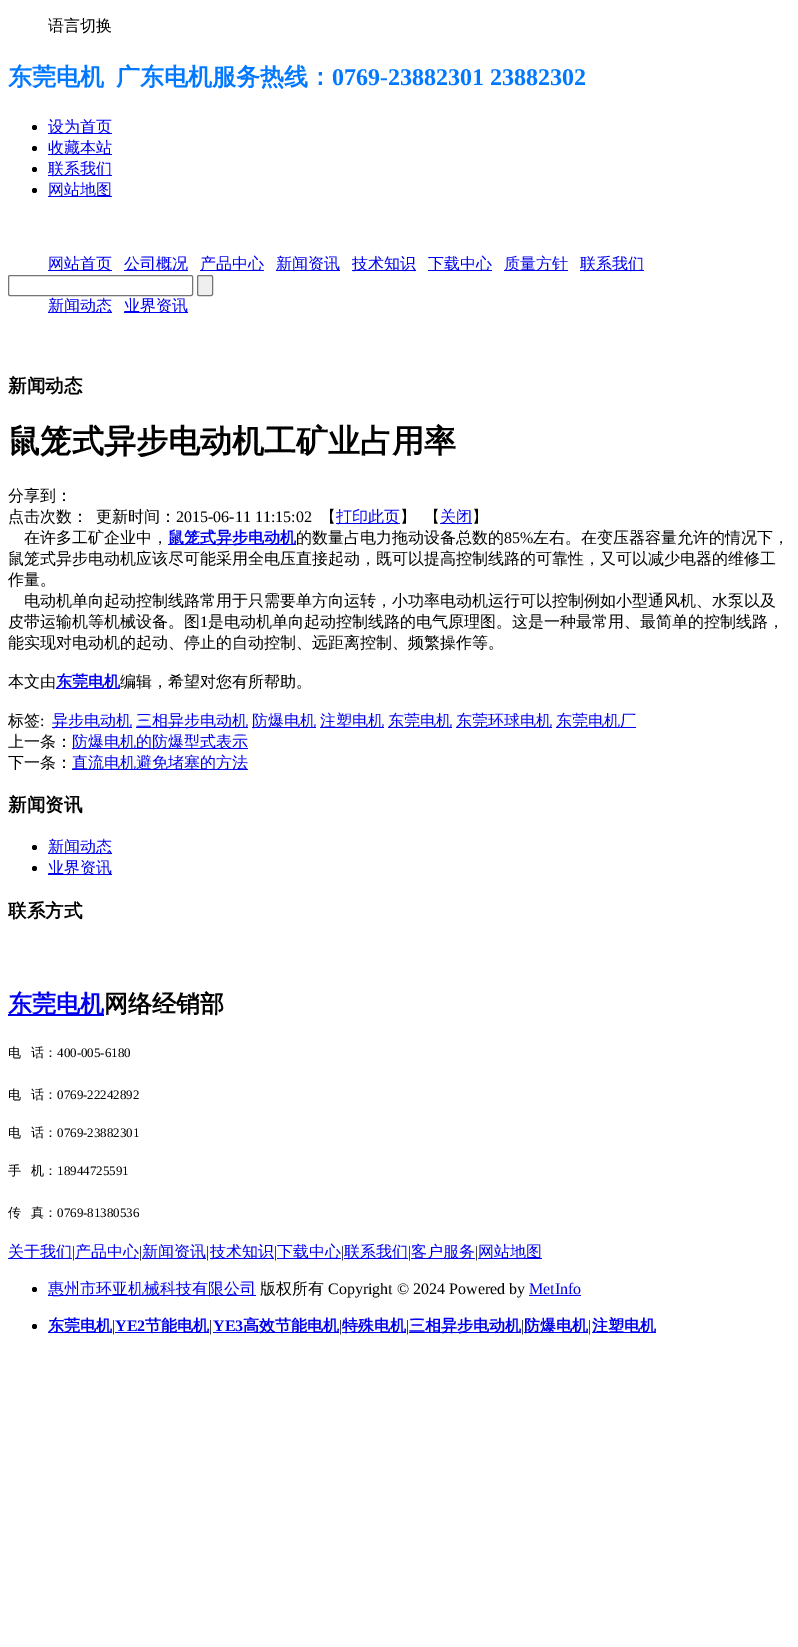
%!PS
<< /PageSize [798 1647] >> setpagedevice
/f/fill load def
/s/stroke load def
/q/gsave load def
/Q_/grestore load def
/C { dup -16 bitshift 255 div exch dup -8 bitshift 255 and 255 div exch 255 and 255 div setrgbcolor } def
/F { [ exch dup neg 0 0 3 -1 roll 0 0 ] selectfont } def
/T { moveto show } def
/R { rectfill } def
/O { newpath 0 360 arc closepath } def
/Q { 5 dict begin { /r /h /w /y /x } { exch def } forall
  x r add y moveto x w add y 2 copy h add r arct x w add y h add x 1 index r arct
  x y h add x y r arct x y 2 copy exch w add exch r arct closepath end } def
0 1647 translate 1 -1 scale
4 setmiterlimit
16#FFFFFF C
0 0 798 1647 R
/WenQuanYiZenHei-Medium 16 F
16#000000 C
(语言切换) 48 31 T
/WenQuanYiZenHei-Bold 24 F
16#0078FF C
(东莞电机) 8 85 T
(广东电机服务热线：) 116 85 T
/LiberationSerif-Bold 24 F
(0769-23882301 23882302) 332 85 T
16#000000 C
34.5 127.5 2.5 O f
16#0000EE C
48 133 64 1 R
/WenQuanYiZenHei-Medium 16 F
(设为首页) 48 132 T
16#000000 C
34.5 148.5 2.5 O f
16#0000EE C
48 154 64 1 R
(收藏本站) 48 153 T
16#000000 C
34.5 169.5 2.5 O f
16#0000EE C
48 175 64 1 R
(联系我们) 48 174 T
16#000000 C
34.5 190.5 2.5 O f
16#0000EE C
48 196 64 1 R
(网站地图) 48 195 T
48 270 64 1 R
(网站首页) 48 269 T
124 270 64 1 R
(公司概况) 124 269 T
200 270 64 1 R
(产品中心) 200 269 T
276 270 64 1 R
(新闻资讯) 276 269 T
352 270 64 1 R
(技术知识) 352 269 T
428 270 64 1 R
(下载中心) 428 269 T
504 270 64 1 R
(质量方针) 504 269 T
580 270 64 1 R
(联系我们) 580 269 T
16#767676 C
8.5 275.5 184 20 1.5 Q s
16#EFEFEF C
197.5 275.5 15 20 1.5 Q q f Q_
16#767676 C
s
16#0000EE C
48 312 64 1 R
(新闻动态) 48 311 T
124 312 64 1 R
(业界资讯) 124 311 T
/WenQuanYiZenHei-Bold 18.5 F
16#000000 C
(新闻动态) 8 392 T
/WenQuanYiZenHei-Bold 32 F
(鼠笼式异步电动机工矿业占用率) 8 452 T
/WenQuanYiZenHei-Medium 16 F
(分享到：) 8 501 T
(点击次数：) 8 522 T
(更新时间：) 96 522 T
/LiberationSerif-Regular 16 F
(2015-06-11 11:15:02) 176 522 T
/WenQuanYiZenHei-Medium 16 F
(【) 320 522 T
16#0000EE C
336 523 64 1 R
(打印此页) 336 522 T
16#000000 C
(】) 400 522 T
(【) 424 522 T
16#0000EE C
440 523 32 1 R
(关闭) 440 522 T
16#000000 C
(】) 472 522 T
(在许多工矿企业中，) 24 543 T
16#0000EE C
168 544 128 1 R
/WenQuanYiZenHei-Bold 16 F
(鼠笼式异步电动机) 168 543 T
/WenQuanYiZenHei-Medium 16 F
16#000000 C
(的数量占电力拖动设备总数的) 296 543 T
/LiberationSerif-Regular 16 F
(85%) 504 543 T
/WenQuanYiZenHei-Medium 16 F
(左右。在变压器容量允许的情况下，) 533 543 T
(鼠笼式异步电动机应该尽可能采用全电压直接起动，既可以提高控制线路的可靠性，又可以减少电器的维修工) 8 564 T
(作量。) 8 585 T
(电动机单向起动控制线路常用于只需要单方向运转，小功率电动机运行可以控制例如小型通风机、水泵以及) 24 606 T
(皮带运输机等机械设备。图) 8 627 T
/LiberationSerif-Regular 16 F
(1) 200 627 T
/WenQuanYiZenHei-Medium 16 F
(是电动机单向起动控制线路的电气原理图。这是一种最常用、最简单的控制线路，) 208 627 T
(能实现对电动机的起动、停止的自动控制、远距离控制、频繁操作等。) 8 648 T
(本文由) 8 687 T
16#0000EE C
56 688 64 1 R
/WenQuanYiZenHei-Bold 16 F
(东莞电机) 56 687 T
/WenQuanYiZenHei-Medium 16 F
16#000000 C
(编辑，希望对您有所帮助。) 120 687 T
(标签) 8 726 T
/LiberationSerif-Regular 16 F
(:) 40 726 T
16#0000EE C
52 727 80 1 R
/WenQuanYiZenHei-Medium 16 F
(异步电动机) 52 726 T
136 727 112 1 R
(三相异步电动机) 136 726 T
252 727 64 1 R
(防爆电机) 252 726 T
320 727 64 1 R
(注塑电机) 320 726 T
388 727 64 1 R
(东莞电机) 388 726 T
456 727 96 1 R
(东莞环球电机) 456 726 T
556 727 80 1 R
(东莞电机厂) 556 726 T
16#000000 C
(上一条：) 8 747 T
16#0000EE C
72 748 176 1 R
(防爆电机的防爆型式表示) 72 747 T
16#000000 C
(下一条：) 8 768 T
16#0000EE C
72 769 176 1 R
(直流电机避免堵塞的方法) 72 768 T
/WenQuanYiZenHei-Bold 18.5 F
16#000000 C
(新闻资讯) 8 811 T
34.5 847.5 2.5 O f
16#0000EE C
48 853 64 1 R
/WenQuanYiZenHei-Medium 16 F
(新闻动态) 48 852 T
16#000000 C
34.5 868.5 2.5 O f
16#0000EE C
48 874 64 1 R
(业界资讯) 48 873 T
/WenQuanYiZenHei-Bold 18.5 F
16#000000 C
(联系方式) 8 917 T
16#0000EE C
8 1014 96 2 R
/WenQuanYiZenHei-Bold 24 F
(东莞电机) 8 1012 T
16#000000 C
(网络经销部) 104 1012 T
/WenQuanYiZenHei-Medium 13 F
(电) 8 1057 T
(话：) 31 1057 T
/LiberationSerif-Regular 13 F
(400-005-6180) 57 1057 T
/WenQuanYiZenHei-Medium 13 F
(电) 8 1099 T
(话：) 31 1099 T
/LiberationSerif-Regular 13 F
(0769-22242892) 57 1099 T
/WenQuanYiZenHei-Medium 13 F
(电) 8 1137 T
(话：) 31 1137 T
/LiberationSerif-Regular 13 F
(0769-23882301) 57 1137 T
/WenQuanYiZenHei-Medium 13 F
(手) 8 1175 T
(机：) 31 1175 T
/LiberationSerif-Regular 13 F
(18944725591) 57 1175 T
/WenQuanYiZenHei-Medium 13 F
(传) 8 1217 T
(真：) 31 1217 T
/LiberationSerif-Regular 13 F
(0769-81380536) 57 1217 T
16#0000EE C
8 1258 64 1 R
/WenQuanYiZenHei-Medium 16 F
(关于我们) 8 1257 T
/LiberationSerif-Regular 16 F
16#000000 C
(|) 72 1257 T
16#0000EE C
75 1258 64 1 R
/WenQuanYiZenHei-Medium 16 F
(产品中心) 75 1257 T
/LiberationSerif-Regular 16 F
16#000000 C
(|) 139 1257 T
16#0000EE C
142 1258 64 1 R
/WenQuanYiZenHei-Medium 16 F
(新闻资讯) 142 1257 T
/LiberationSerif-Regular 16 F
16#000000 C
(|) 206 1257 T
16#0000EE C
210 1258 64 1 R
/WenQuanYiZenHei-Medium 16 F
(技术知识) 210 1257 T
/LiberationSerif-Regular 16 F
16#000000 C
(|) 274 1257 T
16#0000EE C
277 1258 64 1 R
/WenQuanYiZenHei-Medium 16 F
(下载中心) 277 1257 T
/LiberationSerif-Regular 16 F
16#000000 C
(|) 341 1257 T
16#0000EE C
344 1258 64 1 R
/WenQuanYiZenHei-Medium 16 F
(联系我们) 344 1257 T
/LiberationSerif-Regular 16 F
16#000000 C
(|) 408 1257 T
16#0000EE C
411 1258 64 1 R
/WenQuanYiZenHei-Medium 16 F
(客户服务) 411 1257 T
/LiberationSerif-Regular 16 F
16#000000 C
(|) 475 1257 T
16#0000EE C
478 1258 64 1 R
/WenQuanYiZenHei-Medium 16 F
(网站地图) 478 1257 T
16#000000 C
34.5 1289.5 2.5 O f
16#0000EE C
48 1295 208 1 R
(惠州市环亚机械科技有限公司) 48 1294 T
16#000000 C
(版权所有) 260 1294 T
/LiberationSerif-Regular 16 F
(Copyright © 2024 Powered by) 328 1294 T
16#0000EE C
(MetInfo) 529 1294 T
529 1295 52 1 R
16#000000 C
34.5 1326.5 2.5 O f
16#0000EE C
48 1332 64 1 R
/WenQuanYiZenHei-Bold 16 F
(东莞电机) 48 1331 T
/LiberationSerif-Regular 16 F
16#000000 C
(|) 112 1331 T
/LiberationSerif-Bold 16 F
16#0000EE C
(YE2) 115 1331 T
115 1332 94 1 R
/WenQuanYiZenHei-Bold 16 F
(节能电机) 145 1331 T
/LiberationSerif-Regular 16 F
16#000000 C
(|) 209 1331 T
/LiberationSerif-Bold 16 F
16#0000EE C
(YE3) 213 1331 T
213 1332 126 1 R
/WenQuanYiZenHei-Bold 16 F
(高效节能电机) 243 1331 T
/LiberationSerif-Regular 16 F
16#000000 C
(|) 339 1331 T
16#0000EE C
342 1332 64 1 R
/WenQuanYiZenHei-Bold 16 F
(特殊电机) 342 1331 T
/LiberationSerif-Regular 16 F
16#000000 C
(|) 406 1331 T
16#0000EE C
409 1332 112 1 R
/WenQuanYiZenHei-Bold 16 F
(三相异步电动机) 409 1331 T
/LiberationSerif-Regular 16 F
16#000000 C
(|) 521 1331 T
16#0000EE C
524 1332 64 1 R
/WenQuanYiZenHei-Bold 16 F
(防爆电机) 524 1331 T
/LiberationSerif-Regular 16 F
16#000000 C
(|) 588 1331 T
16#0000EE C
592 1332 64 1 R
/WenQuanYiZenHei-Bold 16 F
(注塑电机) 592 1331 T
showpage
